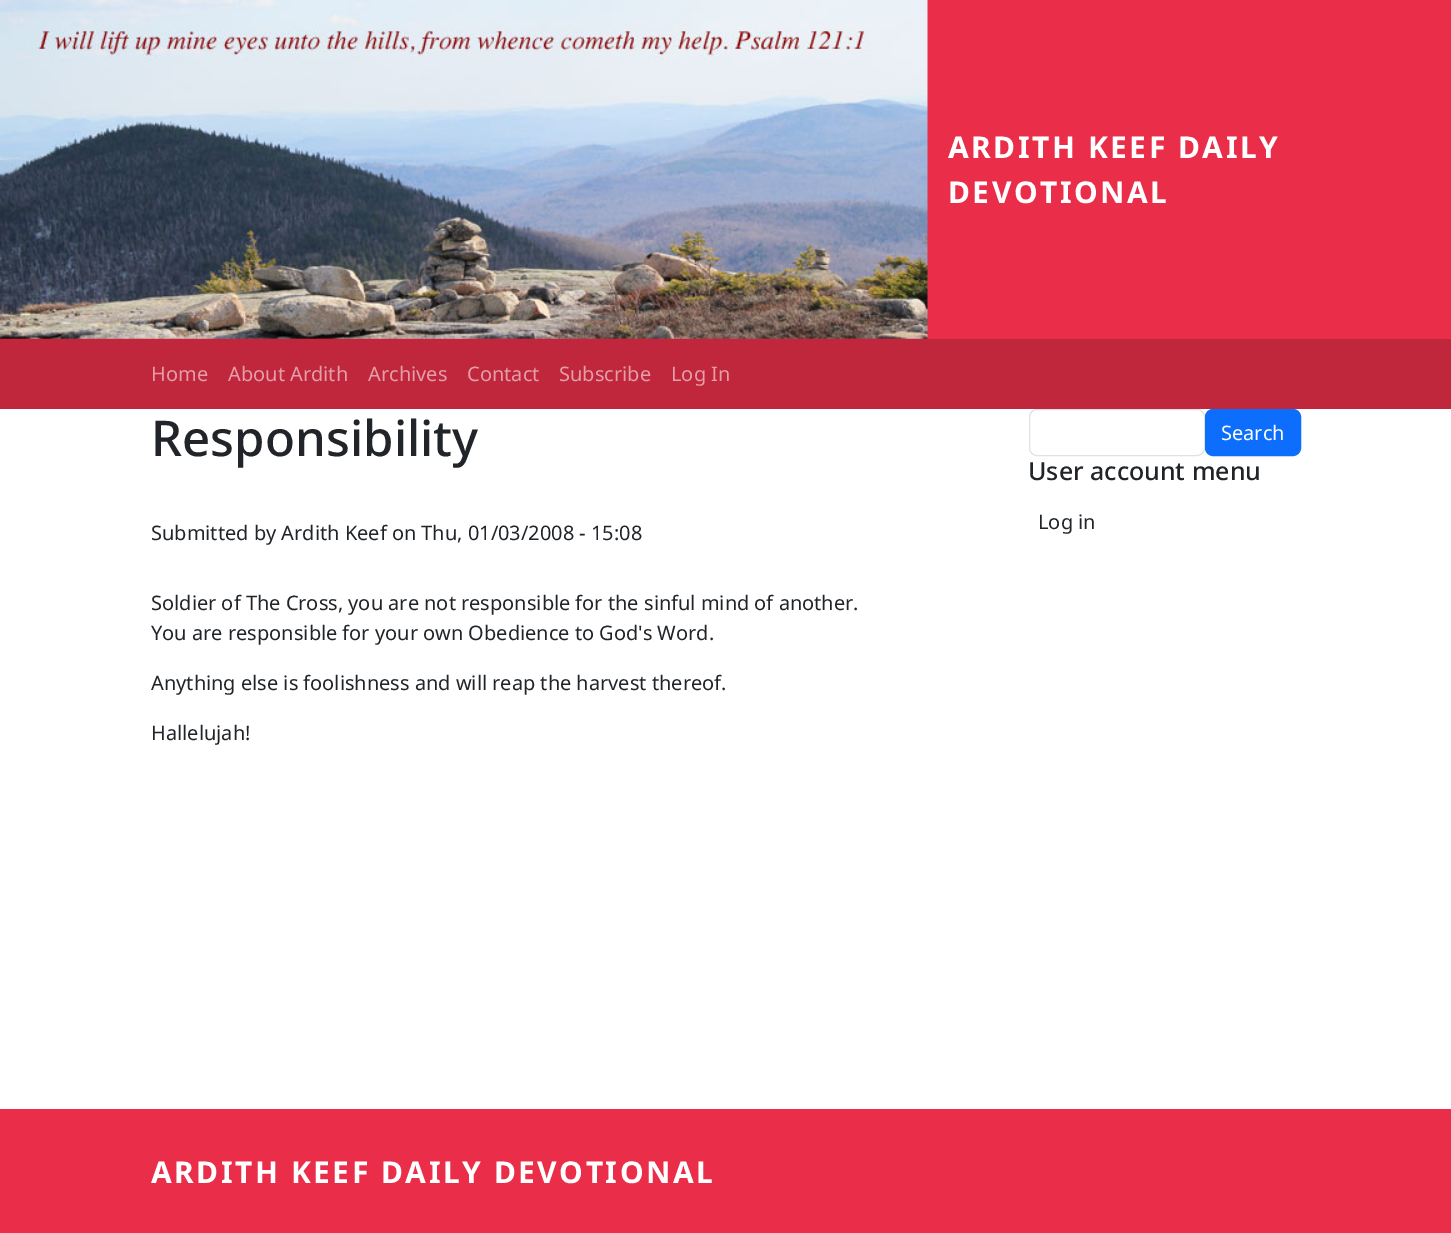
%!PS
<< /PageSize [1451 1233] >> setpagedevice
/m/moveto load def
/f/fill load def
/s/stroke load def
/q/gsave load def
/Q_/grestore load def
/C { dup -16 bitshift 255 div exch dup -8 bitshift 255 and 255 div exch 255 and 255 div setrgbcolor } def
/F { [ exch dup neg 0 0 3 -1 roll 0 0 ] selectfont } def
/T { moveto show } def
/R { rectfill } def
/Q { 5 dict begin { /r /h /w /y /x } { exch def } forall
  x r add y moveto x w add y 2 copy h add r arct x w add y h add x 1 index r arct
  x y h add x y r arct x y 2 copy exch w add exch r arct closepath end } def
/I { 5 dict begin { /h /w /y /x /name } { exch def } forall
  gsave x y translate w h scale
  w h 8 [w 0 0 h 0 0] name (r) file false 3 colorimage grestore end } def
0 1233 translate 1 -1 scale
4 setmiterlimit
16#FFFFFF C
0 0 1451 1233 R
16#EA2D49 C
0 0 1451 339 R
(1.rgb) 0 0 928 339 I
/NotoSans-Bold 30 F
16#FFFFFF C
948 158 m 2.5 0 (ARDITH KEEF DAILY) ashow
948 203 m 2.5 0 (DEVOTIONAL) ashow
16#C0273C C
0 339 1451 70 R
/NotoSans-Regular 20 F
16#E39EA7 C
(Home) 151 381 T
(About Ardith) 228 381 T
(Archives) 368 381 T
(Contact) 467 381 T
(Subscribe) 559 381 T
(Log In) 671 381 T
/NotoSans-Medium 49.25 F
16#212529 C
(Responsibility) 151 456 T
/NotoSans-Regular 20 F
(Submitted by Ardith Keef on Thu, 01/03/2008 - 15:08) 151 540 T
(Soldier of The Cross, you are not responsible for the sinful mind of another.) 151 610 T
(You are responsible for your own Obedience to God's Word.) 151 640 T
(Anything else is foolishness and will reap the harvest thereof.) 151 690 T
(Hallelujah!) 151 740 T
16#DEE2E6 C
1029.5 409.5 175 46 7.5 Q s
16#0D6EFD C
1205.5 409.5 95 46 7.5 Q q f Q_
s
16#FFFFFF C
(Search) 1221 440 T
/NotoSans-Medium 25 F
16#212529 C
(User account menu) 1028 480 T
/NotoSans-Regular 20 F
(Log in) 1038 529 T
16#EA2D49 C
0 1109 1451 124 R
/NotoSans-Bold 30 F
16#FFFFFF C
151 1183 m 2.5 0 (ARDITH KEEF DAILY DEVOTIONAL) ashow
showpage
